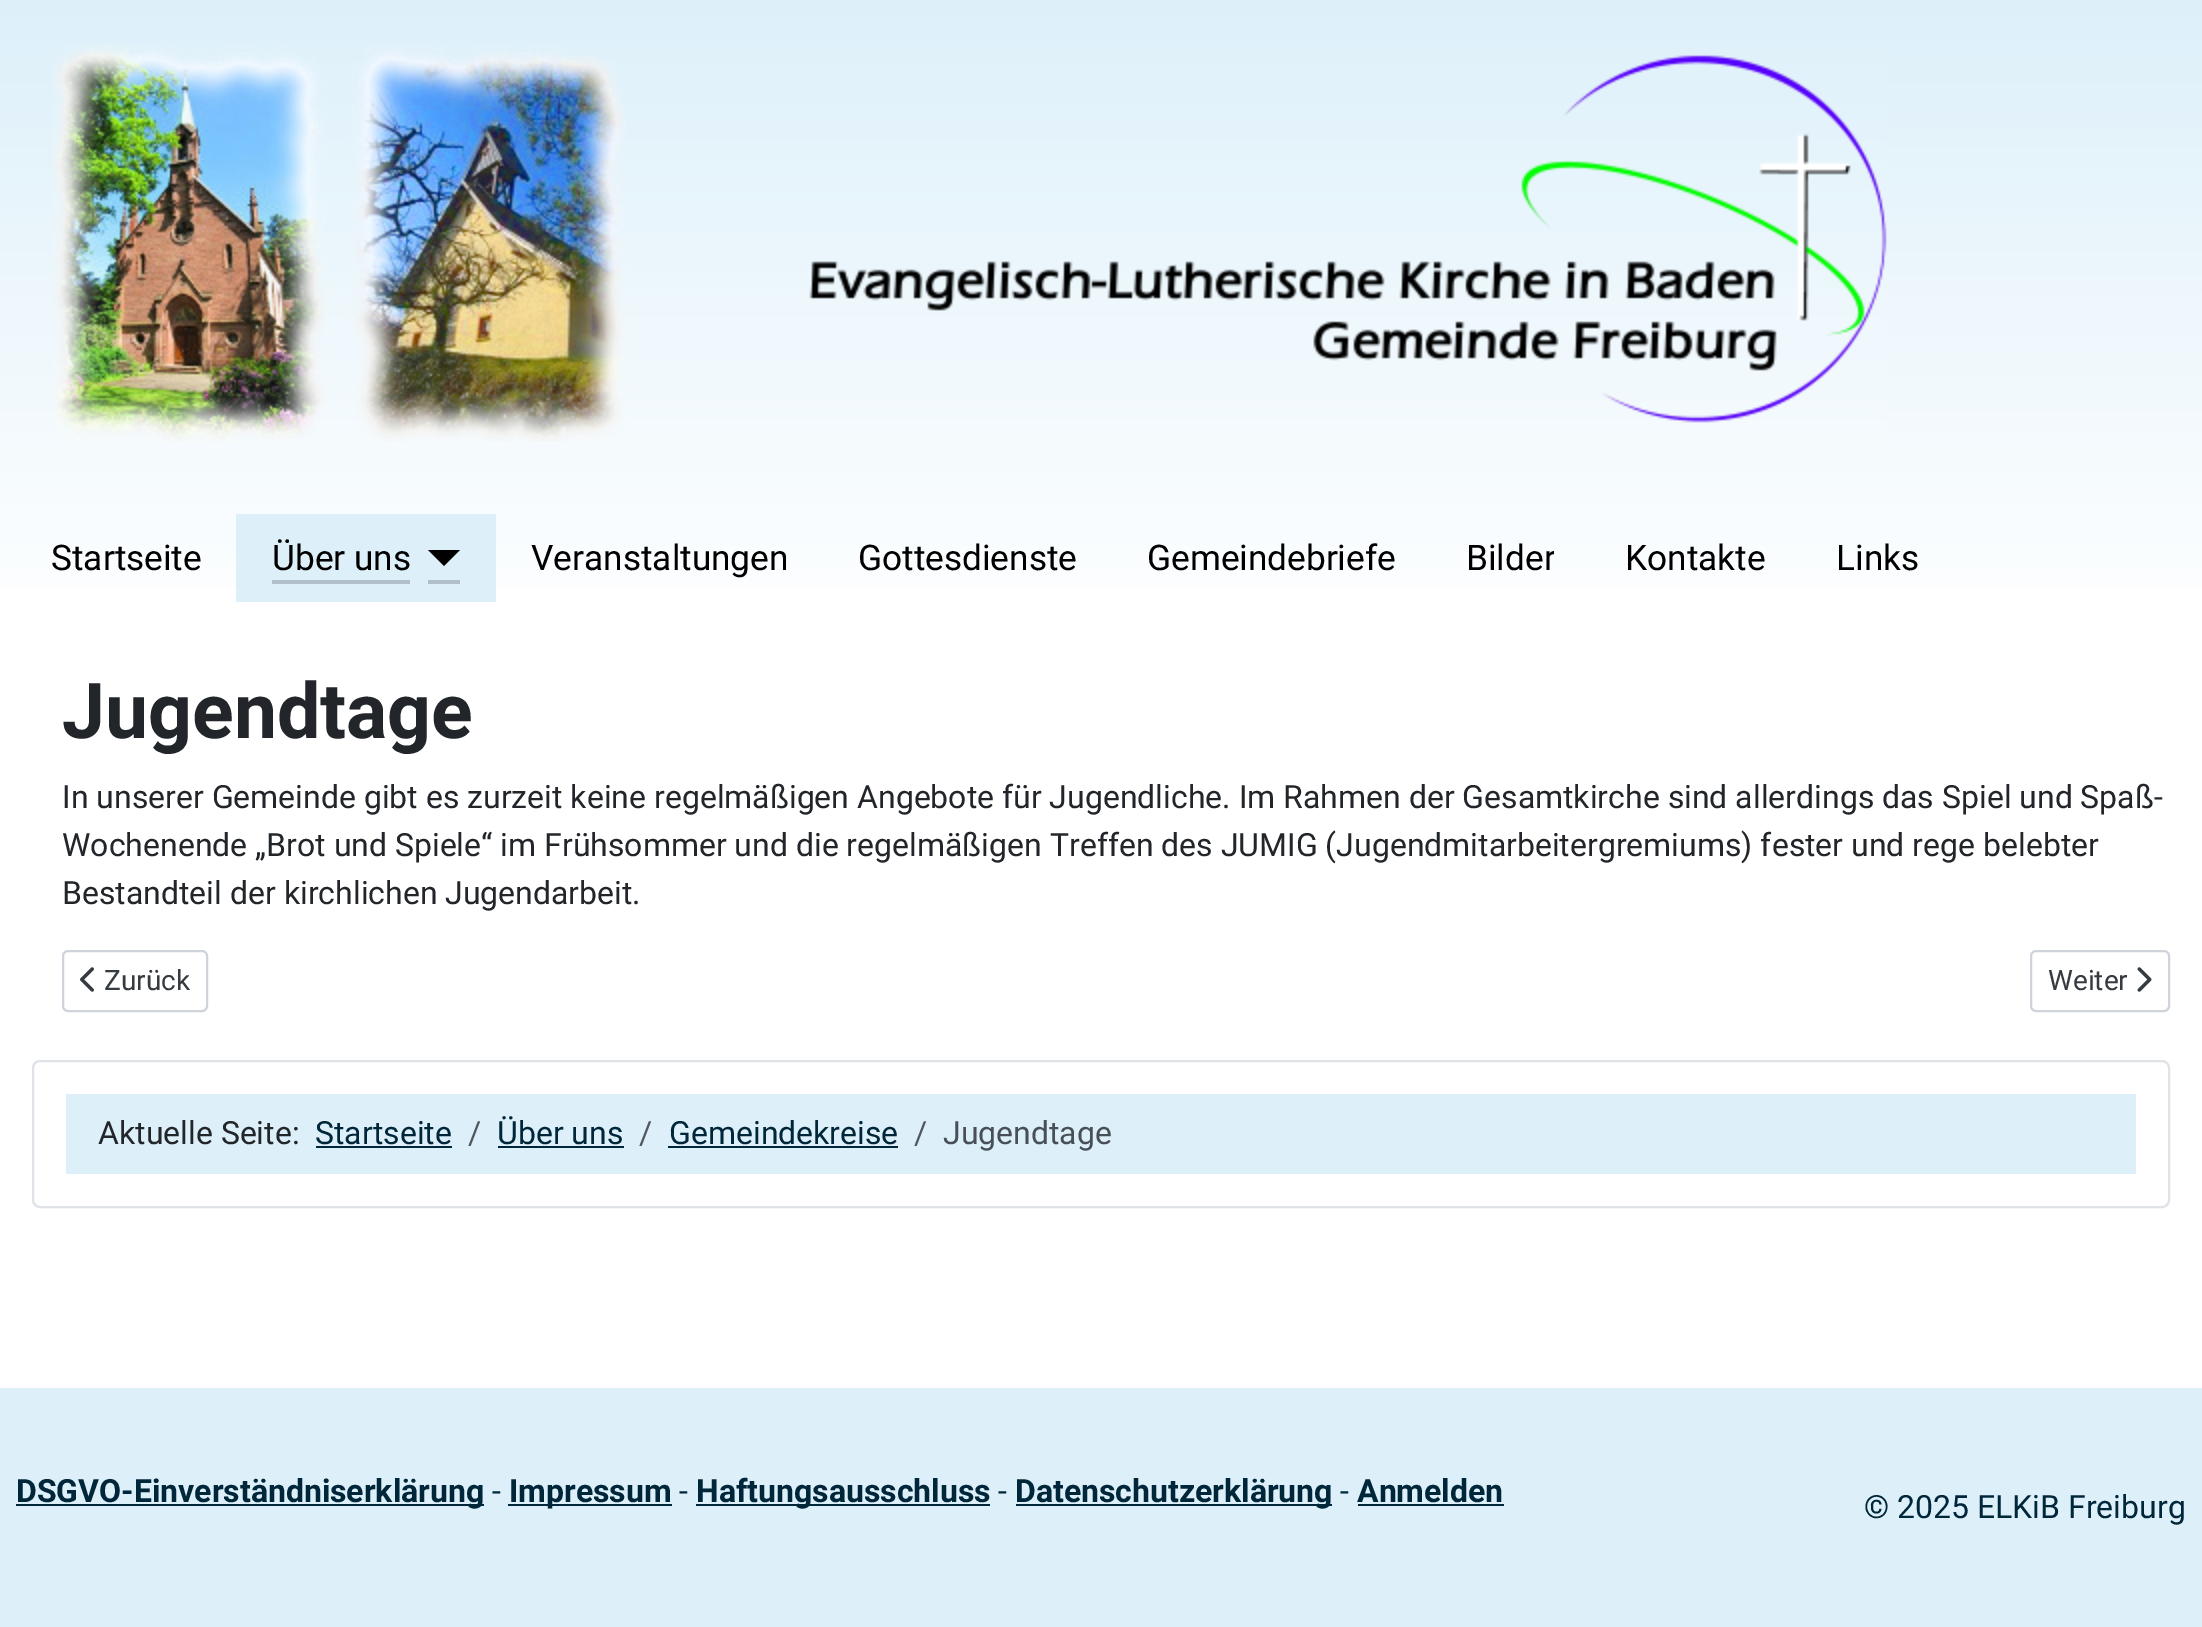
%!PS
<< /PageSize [2202 1627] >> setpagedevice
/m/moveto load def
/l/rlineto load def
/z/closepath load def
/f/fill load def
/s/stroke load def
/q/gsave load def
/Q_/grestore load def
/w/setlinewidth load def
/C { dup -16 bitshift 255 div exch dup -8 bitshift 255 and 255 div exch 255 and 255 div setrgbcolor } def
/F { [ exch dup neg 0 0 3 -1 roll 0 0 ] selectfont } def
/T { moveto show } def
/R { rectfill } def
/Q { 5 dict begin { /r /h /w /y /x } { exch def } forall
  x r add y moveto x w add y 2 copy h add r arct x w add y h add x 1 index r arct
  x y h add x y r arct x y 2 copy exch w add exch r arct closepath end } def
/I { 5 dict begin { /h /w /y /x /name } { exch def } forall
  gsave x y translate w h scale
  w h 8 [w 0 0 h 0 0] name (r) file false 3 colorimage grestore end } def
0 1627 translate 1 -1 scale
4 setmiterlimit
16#FFFFFF C
0 0 2202 1627 R
q 0 0 m 2202 0 l 0 587 l -2202 0 l z clip newpath
<< /ShadingType 2 /ColorSpace /DeviceRGB /Coords [1101 0 1101 634] /Extend [true true] /Function << /FunctionType 2 /Domain [0 1] /C0 [.867 .941 .98] /C1 [1 1 1] /N 1 >> >> shfill Q_
(1.rgb) 52 44 1835 398 I
/Roboto-Regular 35.25 F
16#000000 C
(Startseite) 51 570 T
16#DDF0FA C
236 514 260 88 R
16#000000 C
(Über uns) 272 570 T
16#B1C0C8 C
272 580 138 4 R
16#000000 C
428 550 m 32 0 l -16 16 l z f
16#B1C0C8 C
428 580 32 4 R
16#000000 C
(Veranstaltungen) 531 570 T
(Gottesdienste) 858 570 T
(Gemeindebriefe) 1147 570 T
q
1466 532 88 52 rectclip
(Bilder) 1466 570 T
Q_
(Kontakte) 1625 570 T
(Links) 1836 570 T
/Roboto-Bold 77 F
16#22262A C
(Jugendtage) 62 738 T
/Roboto-Regular 32 F
(In unserer Gemeinde gibt es zurzeit keine regelmäßigen Angebote für Jugendliche. Im Rahmen der Gesamtkirche sind allerdings das Spiel und Spaß-) 62 808 T
(Wochenende „Brot und Spiele“ im Frühsommer und die regelmäßigen Treffen des JUMIG \(Jugendmitarbeitergremiums\) fester und rege belebter) 62 856 T
(Bestandteil der kirchlichen Jugendarbeit.) 62 904 T
16#CED4DA C
2 w
63 951 144 60 5 Q s
(2.rgb) 80 967 14 25 I
/Roboto-Regular 28 F
16#353B41 C
(Zurück) 104 990 T
16#CED4DA C
2031 951 138 60 5 Q s
16#353B41 C
(Weiter) 2048 990 T
(3.rgb) 2137 967 15 25 I
16#DFE3E7 C
33 1061 2136 146 7 Q s
16#DDF0FA C
66 1094 2070 80 R
/Roboto-Regular 32 F
16#22262A C
(Aktuelle Seite:) 98 1144 T
16#00263A C
(Startseite) 315 1144 T
316 1146 136 2 R
16#51595E C
(/) 468 1144 T
16#00263A C
(Über uns) 497 1144 T
498 1146 126 2 R
16#51595E C
(/) 639 1144 T
16#00263A C
(Gemeindekreise) 669 1144 T
668 1146 230 2 R
16#51595E C
(/) 914 1144 T
16#484F56 C
(Jugendtage) 943 1144 T
16#DDF0FA C
0 1388 2202 239 R
16#00263A C
16 1504 468 2 R
/Roboto-Bold 32 F
(DSGVO-Einverständniserklärung) 16 1502 T
/Roboto-Regular 32 F
(-) 492 1502 T
508 1504 164 2 R
/Roboto-Bold 32 F
(Impressum) 509 1502 T
/Roboto-Regular 32 F
(-) 679 1502 T
696 1504 294 2 R
/Roboto-Bold 32 F
(Haftungsausschluss) 696 1502 T
/Roboto-Regular 32 F
(-) 998 1502 T
1016 1504 316 2 R
/Roboto-Bold 32 F
(Datenschutzerklärung) 1015 1502 T
/Roboto-Regular 32 F
(-) 1340 1502 T
/Roboto-Bold 32 F
(Anmelden) 1357 1502 T
1358 1504 146 2 R
/Roboto-Regular 32 F
(© 2025 ELKiB Freiburg) 1864 1518 T
showpage
